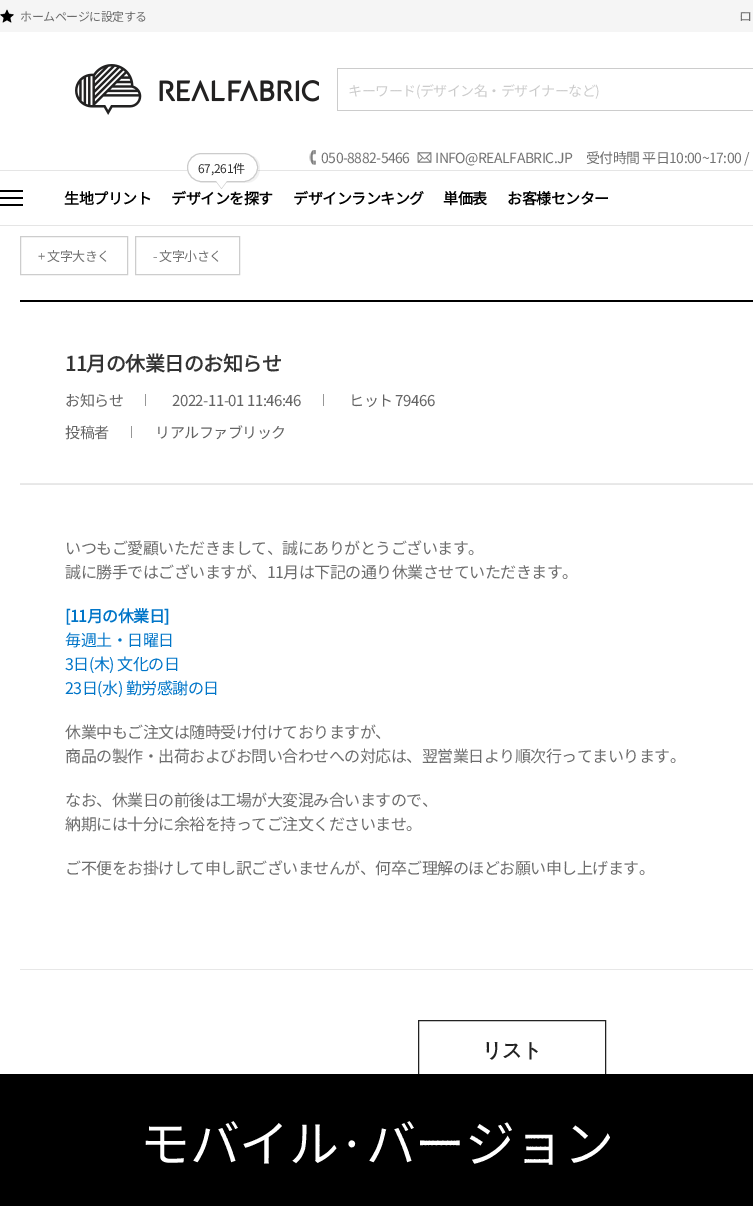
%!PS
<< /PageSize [753 1206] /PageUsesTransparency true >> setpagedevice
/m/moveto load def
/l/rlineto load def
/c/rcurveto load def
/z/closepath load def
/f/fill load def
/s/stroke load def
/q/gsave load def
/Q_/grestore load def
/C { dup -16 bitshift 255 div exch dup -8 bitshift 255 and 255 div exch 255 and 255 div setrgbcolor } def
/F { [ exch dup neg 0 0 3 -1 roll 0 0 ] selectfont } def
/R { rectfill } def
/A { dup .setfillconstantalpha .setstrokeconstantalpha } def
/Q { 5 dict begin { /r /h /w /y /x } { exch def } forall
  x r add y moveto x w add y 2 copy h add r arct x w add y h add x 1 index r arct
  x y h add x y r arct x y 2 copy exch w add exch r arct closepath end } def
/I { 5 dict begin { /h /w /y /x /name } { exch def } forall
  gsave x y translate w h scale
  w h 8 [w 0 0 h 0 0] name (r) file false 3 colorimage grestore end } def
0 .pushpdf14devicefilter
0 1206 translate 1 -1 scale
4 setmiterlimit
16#FFFFFF C
0 0 753 1206 R
16#F5F5F5 C
0 0 753 32 R
(1.rgb) 0 9 14 14 I
/NotoSansJP-Thin 12 F
16#6C6C6C C
20 21 m -.5 0 (ホームページに設定する) ashow
/NotoSansJP-Thin 13 F
739 21 m -.5 0 (ロ) ashow
(2.rgb) 75 64 244 51 I
16#CCCCCC C
337 68 416 1 R
337 110 416 1 R
337 68 1 43 R
/NotoSansJP-Thin 14 F
348 96 m -.5 0 (キーワード\(デザイン名・デザイナーなど\)) ashow
(3.rgb) 309 150 7 15 I
16#737373 C
321 163 m -.5 0 (050-8882-5466) ashow
(4.rgb) 417 152 15 11 I
435 163 m -.5 0 (INFO@REALFABRIC.JP     受付時間 平日10:00~17:00 /) ashow
16#E5E5E5 C
0 170 753 1 R
0 225 753 1 R
16#000000 C
0 190 23 2 R
0 197 23 2 R
0 204 23 2 R
/NotoSansJP-Bold 15 F
64 204 m -.5 0 (生地プリント) ashow
0.05 A
197 181 m 2 1 4 2 7 2 c 42 0 l 8 0 14 -6 14 -15 c 0 -6 -4 -12 -10 -13 c 4 2 8 7 8 13 c 0 8 -7 14 -15 14 c -42 0 l z f
1 A
16#FFFFFF C
187.5 153.5 70 28 14 Q q f Q_
16#CCCCCC C
s
/NotoSansJP-Thin 12 F
16#333333 C
198 173 m -.25 0 (67,261件) ashow
16#CCCCCC C
215.5 181 m 12 0 l -6 8 l z f
16#FFFFFF C
215.5 180 m 12 0 l -6 8 l z f
/NotoSansJP-Bold 15 F
16#000000 C
171 204 m -.5 0 (デザインを探す) ashow
293 204 m -.5 0 (デザインランキング) ashow
443 204 m -.5 0 (単価表) ashow
507 204 m -.5 0 (お客様センター) ashow
16#CDCDCD C
20.5 236.5 107 38 rectstroke
/NotoSansJP-Thin 13 F
16#737373 C
38 261 m -.5 0 (+ 文字大きく) ashow
16#CDCDCD C
135.5 236.5 104 38 rectstroke
16#737373 C
153 261 m -.5 0 (- 文字小さく) ashow
16#000000 C
20 300 733 2 R
/NotoSansJP-Bold 20 F
16#333333 C
65 371 m -.5 0 (11月の休業日のお知らせ) ashow
/NotoSansJP-Thin 15 F
16#646464 C
65 406 m -.5 0 (お知らせ) ashow
16#979797 C
145 394 1 12 R
16#646464 C
172 406 m -.5 0 (2022-11-01 11:46:46) ashow
16#979797 C
323 394 1 12 R
16#646464 C
349 406 m -.5 0 (ヒット 79466) ashow
65 438 m -.5 0 (投稿者) ashow
16#979797 C
131 426 1 12 R
16#646464 C
155 438 m -.5 0 (リアルファブリック) ashow
16#E9E9E9 C
20 483 733 1 R
16#E7E7E7 C
20 484 733 1 R
20 969 733 1 R
/NotoSansJP-Thin 16 F
16#6C6C6C C
65 554 m -.5 0 (いつもご愛顧いただきまして、誠にありがとうございます。) ashow
65 578 m -.5 0 (誠に勝手ではございますが、11月は下記の通り休業させていただきます。) ashow
/NotoSansJP-Bold 16 F
16#0075C8 C
65 622 m -.5 0 ([11月の休業日]) ashow
/NotoSansJP-Thin 16 F
65 646 m -.5 0 (毎週土・日曜日) ashow
65 670 m -.5 0 (3日\(木\) 文化の日) ashow
65 694 m -.5 0 (23日\(水\) 勤労感謝の日) ashow
16#6C6C6C C
65 738 m -.5 0 (休業中もご注文は随時受け付けておりますが、) ashow
65 762 m -.5 0 (商品の製作・出荷およびお問い合わせへの対応は、翌営業日より順次行ってまいります。) ashow
65 806 m -.5 0 (なお、休業日の前後は工場が大変混み合いますので、) ashow
65 830 m -.5 0 (納期には十分に余裕を持ってご注文くださいませ。) ashow
65 874 m -.5 0 (ご不便をお掛けして申し訳ございませんが、何卒ご理解のほどお願い申し上げます。) ashow
16#222222 C
418.5 1020.5 187 58 rectstroke
/WenQuanYiZenHei-Bold 20 F
482 1057 m -.5 0 (リスト) ashow
16#000000 C
0 1074 753 132 R
/NotoSansJP-Thin 50 F
16#FFFFFF C
140 1162 m -.5 0 (モバイル·バージョン) ashow
.poppdf14devicefilter showpage
